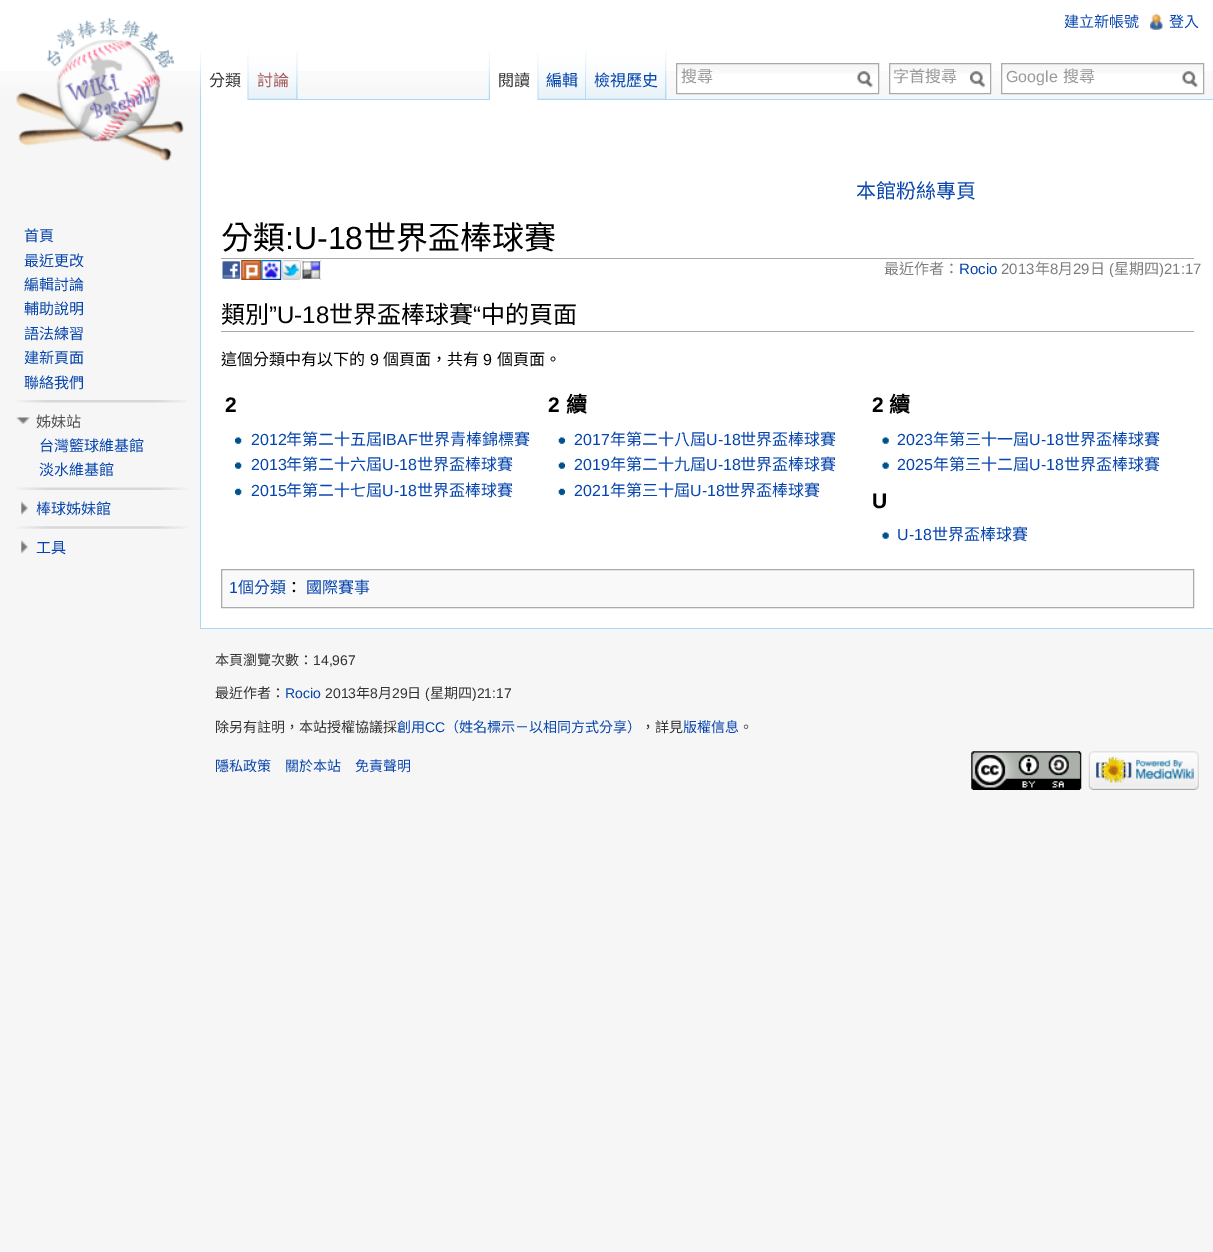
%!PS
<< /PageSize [1213 1252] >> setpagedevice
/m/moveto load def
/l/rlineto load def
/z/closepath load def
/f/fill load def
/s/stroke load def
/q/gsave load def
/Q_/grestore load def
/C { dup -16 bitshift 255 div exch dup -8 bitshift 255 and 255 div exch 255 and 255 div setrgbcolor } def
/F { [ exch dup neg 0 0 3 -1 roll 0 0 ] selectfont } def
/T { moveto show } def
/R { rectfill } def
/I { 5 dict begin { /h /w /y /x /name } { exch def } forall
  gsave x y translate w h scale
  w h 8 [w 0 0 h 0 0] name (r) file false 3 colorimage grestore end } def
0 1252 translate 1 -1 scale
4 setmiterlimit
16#F6F6F6 C
0 0 1213 1252 R
16#FFFFFF C
0 0 1213 71 R
(1.rgb) 0 71 1213 29 I
/NotoSansCJKTC-Regular 15 F
16#0645AD C
(建立新帳號) 1064 27 T
(2.rgb) 1150 13 13 17 I
(登入) 1169 27 T
(3.rgb) 200 50 1 49 I
16#FFFFFF C
201 71 48 29 R
(4.rgb) 247 52 2 48 I
/NotoSansCJKTC-Regular 16 F
16#333333 C
(分類) 209 86 T
16#F3F3F3 C
297 50 1 50 R
(5.rgb) 248 50 50 50 I
(6.rgb) 296 52 2 48 I
16#A55858 C
(討論) 257 86 T
(7.rgb) 488 50 2 49 I
(8.rgb) 666 50 1 49 I
16#A7D7F9 C
298 99 915 1 R
16#FFFFFF C
490 71 49 29 R
(4.rgb) 537 52 2 48 I
16#333333 C
(閱讀) 498 86 T
(9.rgb) 538 50 49 50 I
(10.rgb) 585 50 2 49 I
16#0645AD C
(編輯) 546 86 T
(11.rgb) 586 50 80 50 I
(12.rgb) 665 50 2 49 I
(檢視歷史) 594 86 T
16#FFFFFF C
677 74 201 19 R
(13.rgb) 677 64 201 10 I
16#AAAAAA C
676.5 63.5 202 30 rectstroke
16#999999 C
(搜尋) 681 82 T
(14.rgb) 857 71 16 17 I
16#FFFFFF C
890 74 100 19 R
(15.rgb) 890 64 100 10 I
16#AAAAAA C
889.5 63.5 101 30 rectstroke
16#999999 C
(字首搜尋) 893 82 T
(16.rgb) 970 71 15 17 I
16#FFFFFF C
1002 74 201 19 R
(13.rgb) 1002 64 201 10 I
16#AAAAAA C
1001.5 63.5 202 30 rectstroke
/LiberationSans-Regular 16 F
16#999999 C
(Google) 1006 82 T
/NotoSansCJKTC-Regular 16 F
(搜尋) 1063 82 T
(14.rgb) 1182 71 16 17 I
(17.rgb) 16 17 168 145 I
/NotoSansCJKTC-Regular 15 F
16#0645AD C
(首頁) 24 241 T
(最近更改) 24 266 T
(編輯討論) 24 290 T
(輔助說明) 24 314 T
(語法練習) 24 339 T
(建新頁面) 24 363 T
(聯絡我們) 24 388 T
(18.rgb) 17 400 170 3 I
(19.rgb) 16 417 14 7 I
16#4D4D4D C
(姊妹站) 36 427 T
16#0645AD C
(台灣籃球維基館) 39 451 T
(淡水維基館) 39 475 T
(20.rgb) 17 487 170 3 I
(21.rgb) 21 501 7 14 I
(棒球姊妹館) 36 514 T
(22.rgb) 17 526 170 3 I
(23.rgb) 21 540 7 14 I
(工具) 36 553 T
16#FFFFFF C
201 100 1012 528 R
16#A7D7F9 C
200 628 1013 1 R
200 99 1 530 R
/NotoSansCJKTC-Regular 20 F
16#0645AD C
(本館粉絲專頁) 856 198 T
16#AAAAAA C
221 258 973 1 R
/NotoSansCJKTC-Regular 32 F
16#000000 C
(分類) 221 249 T
/LiberationSans-Regular 32 F
(:U-18) 285 249 T
/NotoSansCJKTC-Regular 32 F
(世界盃棒球賽) 364 249 T
(24.rgb) 222 261 19 18 I
(25.rgb) 241 260 21 20 I
(26.rgb) 261 260 21 20 I
(27.rgb) 281 260 21 20 I
(28.rgb) 301 260 21 20 I
/NotoSansCJKTC-Regular 15 F
16#7D7D7D C
(最近作者：) 884 274 T
/LiberationSans-Regular 15 F
16#0645AD C
(Rocio) 959 274 T
16#7D7D7D C
(2013) 1001 274 T
/NotoSansCJKTC-Regular 15 F
(年) 1035 274 T
/LiberationSans-Regular 15 F
(8) 1050 274 T
/NotoSansCJKTC-Regular 15 F
(月) 1058 274 T
/LiberationSans-Regular 15 F
(29) 1073 274 T
/NotoSansCJKTC-Regular 15 F
(日) 1090 274 T
/LiberationSans-Regular 15 F
(\() 1109 274 T
/NotoSansCJKTC-Regular 15 F
(星期四) 1114 274 T
/LiberationSans-Regular 15 F
(\)21:17) 1159 274 T
16#AAAAAA C
221 331 973 1 R
/NotoSansCJKTC-Regular 24 F
16#000000 C
(類別) 221 323 T
/LiberationSans-Regular 24 F
(”U-18) 269 323 T
/NotoSansCJKTC-Regular 24 F
(世界盃棒球賽) 329 323 T
/LiberationSans-Regular 24 F
(“) 473 323 T
/NotoSansCJKTC-Regular 24 F
(中的頁面) 481 323 T
/NotoSansCJKTC-Regular 16 F
(這個分類中有以下的) 221 365 T
/LiberationSans-Regular 16 F
(9) 370 365 T
/NotoSansCJKTC-Regular 16 F
(個頁面，共有) 383 365 T
/LiberationSans-Regular 16 F
(9) 483 365 T
/NotoSansCJKTC-Regular 16 F
(個頁面。) 497 365 T
/LiberationSans-Bold 21 F
(2) 225 412 T
(29.rgb) 235 437 7 7 I
/LiberationSans-Regular 16 F
16#0645AD C
(2012) 251 445 T
/NotoSansCJKTC-Regular 16 F
(年第二十五屆) 286 445 T
/LiberationSans-Regular 16 F
(IBAF) 382 445 T
/NotoSansCJKTC-Regular 16 F
(世界青棒錦標賽) 418 445 T
(29.rgb) 235 462 7 7 I
/LiberationSans-Regular 16 F
(2013) 251 470 T
/NotoSansCJKTC-Regular 16 F
(年第二十六屆) 286 470 T
/LiberationSans-Regular 16 F
(U-18) 382 470 T
/NotoSansCJKTC-Regular 16 F
(世界盃棒球賽) 417 470 T
(30.rgb) 235 488 7 8 I
/LiberationSans-Regular 16 F
(2015) 251 496 T
/NotoSansCJKTC-Regular 16 F
(年第二十七屆) 286 496 T
/LiberationSans-Regular 16 F
(U-18) 382 496 T
/NotoSansCJKTC-Regular 16 F
(世界盃棒球賽) 417 496 T
/LiberationSans-Bold 21 F
16#000000 C
(2) 548 412 T
/NotoSansCJKTC-Bold 21 F
(續) 566 412 T
(31.rgb) 558 437 7 7 I
/LiberationSans-Regular 16 F
16#0645AD C
(2017) 574 445 T
/NotoSansCJKTC-Regular 16 F
(年第二十八屆) 610 445 T
/LiberationSans-Regular 16 F
(U-18) 706 445 T
/NotoSansCJKTC-Regular 16 F
(世界盃棒球賽) 740 445 T
(31.rgb) 558 462 7 7 I
/LiberationSans-Regular 16 F
(2019) 574 470 T
/NotoSansCJKTC-Regular 16 F
(年第二十九屆) 610 470 T
/LiberationSans-Regular 16 F
(U-18) 706 470 T
/NotoSansCJKTC-Regular 16 F
(世界盃棒球賽) 740 470 T
(32.rgb) 558 488 7 8 I
/LiberationSans-Regular 16 F
(2021) 574 496 T
/NotoSansCJKTC-Regular 16 F
(年第三十屆) 610 496 T
/LiberationSans-Regular 16 F
(U-18) 690 496 T
/NotoSansCJKTC-Regular 16 F
(世界盃棒球賽) 724 496 T
/LiberationSans-Bold 21 F
16#000000 C
(2) 872 412 T
/NotoSansCJKTC-Bold 21 F
(續) 889 412 T
(33.rgb) 882 437 7 7 I
/LiberationSans-Regular 16 F
16#0645AD C
(2023) 897 445 T
/NotoSansCJKTC-Regular 16 F
(年第三十一屆) 933 445 T
/LiberationSans-Regular 16 F
(U-18) 1029 445 T
/NotoSansCJKTC-Regular 16 F
(世界盃棒球賽) 1064 445 T
(33.rgb) 882 462 7 7 I
/LiberationSans-Regular 16 F
(2025) 897 470 T
/NotoSansCJKTC-Regular 16 F
(年第三十二屆) 933 470 T
/LiberationSans-Regular 16 F
(U-18) 1029 470 T
/NotoSansCJKTC-Regular 16 F
(世界盃棒球賽) 1064 470 T
/LiberationSans-Bold 21 F
16#000000 C
(U) 872 508 T
(33.rgb) 882 532 7 7 I
/LiberationSans-Regular 16 F
16#0645AD C
(U-18) 897 540 T
/NotoSansCJKTC-Regular 16 F
(世界盃棒球賽) 932 540 T
16#F9F9F9 C
221.5 569.5 m 972 0 l 0 38 l -972 0 l z q f Q_
16#AAAAAA C
s
/LiberationSans-Regular 16 F
16#0645AD C
(1) 229 593 T
/NotoSansCJKTC-Regular 16 F
(個分類) 238 593 T
16#000000 C
(：) 286 593 T
16#0645AD C
(國際賽事) 306 593 T
/NotoSansCJKTC-Regular 14 F
16#333333 C
(本頁瀏覽次數：) 215 665 T
/LiberationSans-Regular 14 F
(14,967) 313 665 T
/NotoSansCJKTC-Regular 14 F
(最近作者：) 215 698 T
/LiberationSans-Regular 14 F
16#0645AD C
(Rocio) 285 698 T
16#333333 C
(2013) 325 698 T
/NotoSansCJKTC-Regular 14 F
(年) 356 698 T
/LiberationSans-Regular 14 F
(8) 370 698 T
/NotoSansCJKTC-Regular 14 F
(月) 378 698 T
/LiberationSans-Regular 14 F
(29) 392 698 T
/NotoSansCJKTC-Regular 14 F
(日) 407 698 T
/LiberationSans-Regular 14 F
(\() 425 698 T
/NotoSansCJKTC-Regular 14 F
(星期四) 430 698 T
/LiberationSans-Regular 14 F
(\)21:17) 472 698 T
/NotoSansCJKTC-Regular 14 F
(除另有註明，本站授權協議採) 215 732 T
16#0645AD C
(創用) 397 732 T
/LiberationSans-Regular 14 F
(CC) 425 732 T
/NotoSansCJKTC-Regular 14 F
(（姓名標示－以相同方式分享）) 445 732 T
16#333333 C
(，詳見) 641 732 T
16#0645AD C
(版權信息) 683 732 T
16#333333 C
(。) 739 732 T
16#0645AD C
(隱私政策) 215 771 T
(關於本站) 285 771 T
(免責聲明) 355 771 T
(34.rgb) 971 751 111 39 I
(35.rgb) 1088 751 111 39 I
showpage
